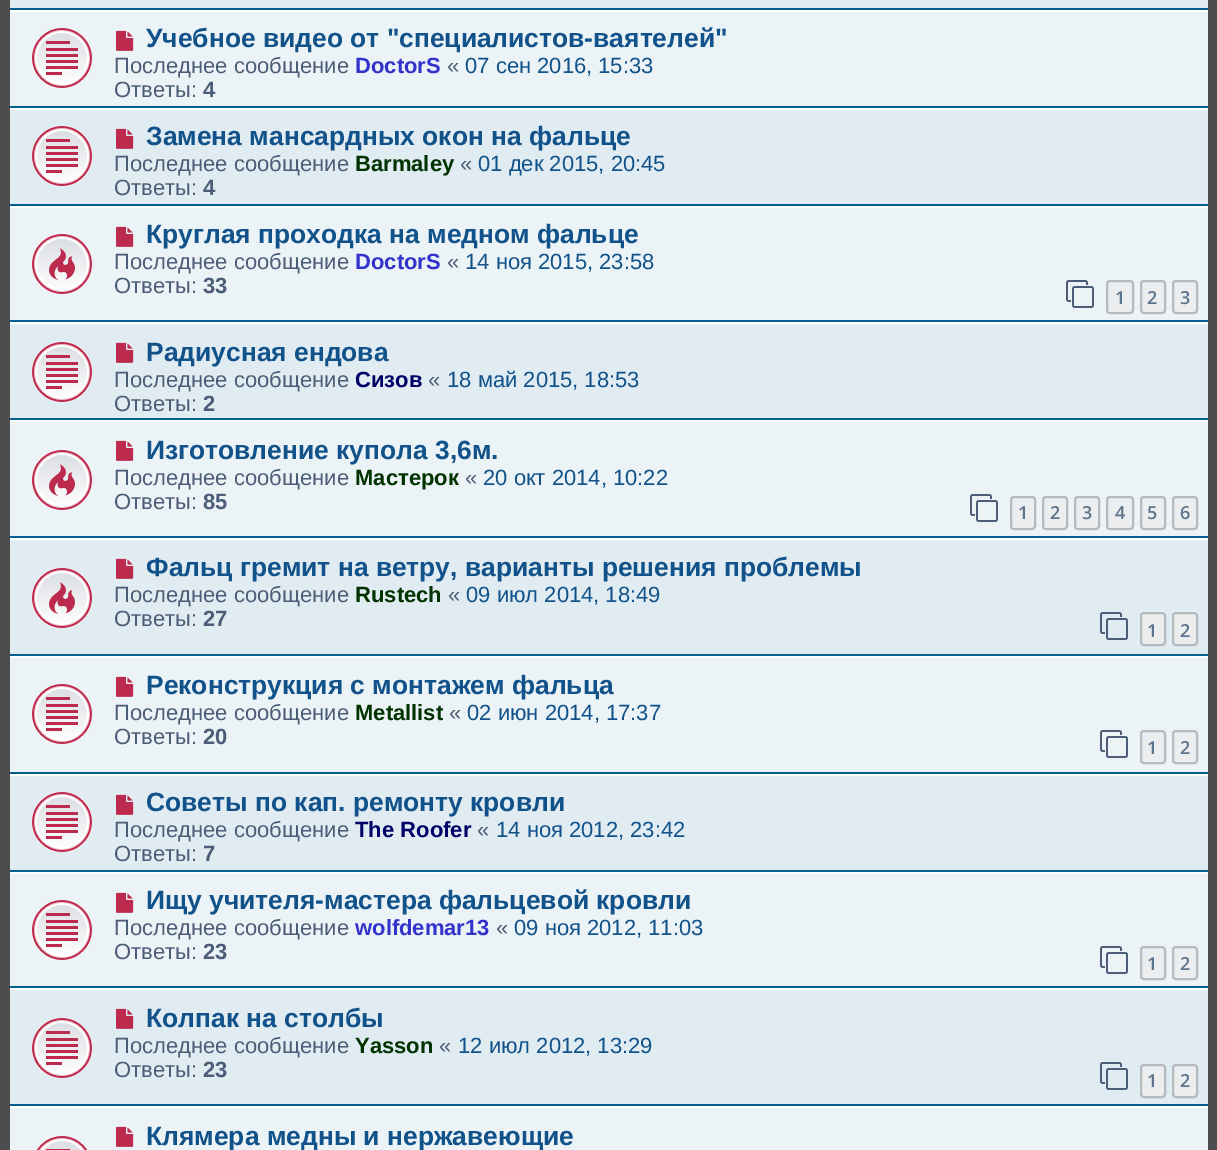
%!PS
<< /PageSize [1217 1150] >> setpagedevice
/f/fill load def
/s/stroke load def
/q/gsave load def
/Q_/grestore load def
/w/setlinewidth load def
/C { dup -16 bitshift 255 div exch dup -8 bitshift 255 and 255 div exch 255 and 255 div setrgbcolor } def
/F { [ exch dup neg 0 0 3 -1 roll 0 0 ] selectfont } def
/T { moveto show } def
/R { rectfill } def
/Q { 5 dict begin { /r /h /w /y /x } { exch def } forall
  x r add y moveto x w add y 2 copy h add r arct x w add y h add x 1 index r arct
  x y h add x y r arct x y 2 copy exch w add exch r arct closepath end } def
/I { 5 dict begin { /h /w /y /x /name } { exch def } forall
  gsave x y translate w h scale
  w h 8 [w 0 0 h 0 0] name (r) file false 3 colorimage grestore end } def
0 1150 translate 1 -1 scale
4 setmiterlimit
16#4D4D4D C
0 0 1217 1150 R
16#E1EBF2 C
10 0 1198 8 R
16#00608F C
10 8 1198 2 R
16#ECF3F7 C
10 12 1198 94 R
16#FFFFFF C
10 10 1198 2 R
16#00608F C
10 106 1198 2 R
(1.rgb) 32 28 60 60 I
(2.rgb) 116 30 18 21 I
/LiberationSans-Bold 26.4 F
16#105289 C
(Учебное видео от "специалистов-ваятелей") 146 47 T
/LiberationSans-Regular 22 F
16#4C5D77 C
(Последнее сообщение) 114 73 T
/LiberationSans-Bold 22 F
16#3333CC C
(DoctorS) 355 73 T
/LiberationSans-Regular 22 F
16#4C5D77 C
(«) 447 73 T
16#105289 C
(07 сен 2016, 15:33) 465 73 T
16#4C5D77 C
(Ответы:) 114 97 T
/LiberationSans-Bold 22 F
(4) 203 97 T
16#E1EBF2 C
10 110 1198 94 R
16#FFFFFF C
10 108 1198 2 R
16#00608F C
10 204 1198 2 R
(3.rgb) 32 126 60 60 I
(4.rgb) 116 128 18 21 I
/LiberationSans-Bold 26.4 F
16#105289 C
(Замена мансардных окон на фальце) 146 145 T
/LiberationSans-Regular 22 F
16#4C5D77 C
(Последнее сообщение) 114 171 T
/LiberationSans-Bold 22 F
16#003300 C
(Barmaley) 355 171 T
/LiberationSans-Regular 22 F
16#4C5D77 C
(«) 460 171 T
16#105289 C
(01 дек 2015, 20:45) 478 171 T
16#4C5D77 C
(Ответы:) 114 195 T
/LiberationSans-Bold 22 F
(4) 203 195 T
16#ECF3F7 C
10 208 1198 112 R
16#FFFFFF C
10 206 1198 2 R
16#00608F C
10 320 1198 2 R
(5.rgb) 32 234 60 60 I
(2.rgb) 116 226 18 21 I
/LiberationSans-Bold 26.4 F
16#105289 C
(Круглая проходка на медном фальце) 146 243 T
/LiberationSans-Regular 22 F
16#4C5D77 C
(Последнее сообщение) 114 269 T
/LiberationSans-Bold 22 F
16#3333CC C
(DoctorS) 355 269 T
/LiberationSans-Regular 22 F
16#4C5D77 C
(«) 447 269 T
16#105289 C
(14 ноя 2015, 23:58) 465 269 T
16#4C5D77 C
(Ответы:) 114 293 T
/LiberationSans-Bold 22 F
(33) 203 293 T
(6.rgb) 1066 280 28 28 I
16#ECEDEE C
1107 281 26 32 3 Q q f Q_
16#B4BAC0 C
2 w
s
/OpenSans-SemiBold 18 F
16#5C758C C
(1) 1115 304 T
16#ECEDEE C
1141 281 24 32 3 Q q f Q_
16#B4BAC0 C
s
16#5C758C C
(2) 1147 304 T
16#ECEDEE C
1173 281 24 32 3 Q q f Q_
16#B4BAC0 C
s
16#5C758C C
(3) 1180 304 T
16#E1EBF2 C
10 324 1198 94 R
16#FFFFFF C
10 322 1198 2 R
16#00608F C
10 418 1198 2 R
(3.rgb) 32 342 60 60 I
(4.rgb) 116 342 18 21 I
/LiberationSans-Bold 26.4 F
16#105289 C
(Радиусная ендова) 146 361 T
/LiberationSans-Regular 22 F
16#4C5D77 C
(Последнее сообщение) 114 387 T
/LiberationSans-Bold 22 F
16#000066 C
(Сизов) 355 387 T
/LiberationSans-Regular 22 F
16#4C5D77 C
(«) 428 387 T
16#105289 C
(18 май 2015, 18:53) 447 387 T
16#4C5D77 C
(Ответы:) 114 411 T
/LiberationSans-Bold 22 F
(2) 203 411 T
16#ECF3F7 C
10 422 1198 114 R
16#FFFFFF C
10 420 1198 2 R
16#00608F C
10 536 1198 2 R
(5.rgb) 32 450 60 60 I
(2.rgb) 116 440 18 21 I
/LiberationSans-Bold 26.4 F
16#105289 C
(Изготовление купола 3,6м.) 146 459 T
/LiberationSans-Regular 22 F
16#4C5D77 C
(Последнее сообщение) 114 485 T
/LiberationSans-Bold 22 F
16#003300 C
(Мастерок) 355 485 T
/LiberationSans-Regular 22 F
16#4C5D77 C
(«) 465 485 T
16#105289 C
(20 окт 2014, 10:22) 483 485 T
16#4C5D77 C
(Ответы:) 114 509 T
/LiberationSans-Bold 22 F
(85) 203 509 T
(6.rgb) 970 494 28 28 I
16#ECEDEE C
1011 497 24 32 3 Q q f Q_
16#B4BAC0 C
s
/OpenSans-SemiBold 18 F
16#5C758C C
(1) 1018 519 T
16#ECEDEE C
1043 497 24 32 3 Q q f Q_
16#B4BAC0 C
s
16#5C758C C
(2) 1050 519 T
16#ECEDEE C
1075 497 24 32 3 Q q f Q_
16#B4BAC0 C
s
16#5C758C C
(3) 1082 519 T
16#ECEDEE C
1107 497 26 32 3 Q q f Q_
16#B4BAC0 C
s
16#5C758C C
(4) 1115 519 T
16#ECEDEE C
1141 497 24 32 3 Q q f Q_
16#B4BAC0 C
s
16#5C758C C
(5) 1147 519 T
16#ECEDEE C
1173 497 24 32 3 Q q f Q_
16#B4BAC0 C
s
16#5C758C C
(6) 1180 519 T
16#E1EBF2 C
10 540 1198 114 R
16#FFFFFF C
10 538 1198 2 R
16#00608F C
10 654 1198 2 R
(7.rgb) 32 568 60 60 I
(4.rgb) 116 558 18 21 I
/LiberationSans-Bold 26.4 F
16#105289 C
(Фальц гремит на ветру, варианты решения проблемы) 146 576 T
/LiberationSans-Regular 22 F
16#4C5D77 C
(Последнее сообщение) 114 602 T
/LiberationSans-Bold 22 F
16#003300 C
(Rustech) 355 602 T
/LiberationSans-Regular 22 F
16#4C5D77 C
(«) 448 602 T
16#105289 C
(09 июл 2014, 18:49) 466 602 T
16#4C5D77 C
(Ответы:) 114 626 T
/LiberationSans-Bold 22 F
(27) 203 626 T
(8.rgb) 1100 612 28 28 I
16#ECEDEE C
1141 613 24 32 3 Q q f Q_
16#B4BAC0 C
s
/OpenSans-SemiBold 18 F
16#5C758C C
(1) 1147 637 T
16#ECEDEE C
1173 613 24 32 3 Q q f Q_
16#B4BAC0 C
s
16#5C758C C
(2) 1180 637 T
16#ECF3F7 C
10 658 1198 114 R
16#FFFFFF C
10 656 1198 2 R
16#00608F C
10 772 1198 2 R
(1.rgb) 32 684 60 60 I
(2.rgb) 116 676 18 21 I
/LiberationSans-Bold 26.4 F
16#105289 C
(Реконструкция с монтажем фальца) 146 694 T
/LiberationSans-Regular 22 F
16#4C5D77 C
(Последнее сообщение) 114 720 T
/LiberationSans-Bold 22 F
16#003300 C
(Metallist) 355 720 T
/LiberationSans-Regular 22 F
16#4C5D77 C
(«) 449 720 T
16#105289 C
(02 июн 2014, 17:37) 467 720 T
16#4C5D77 C
(Ответы:) 114 744 T
/LiberationSans-Bold 22 F
(20) 203 744 T
(6.rgb) 1100 730 28 28 I
16#ECEDEE C
1141 731 24 32 3 Q q f Q_
16#B4BAC0 C
s
/OpenSans-SemiBold 18 F
16#5C758C C
(1) 1147 754 T
16#ECEDEE C
1173 731 24 32 3 Q q f Q_
16#B4BAC0 C
s
16#5C758C C
(2) 1180 754 T
16#E1EBF2 C
10 776 1198 94 R
16#FFFFFF C
10 774 1198 2 R
16#00608F C
10 870 1198 2 R
(3.rgb) 32 792 60 60 I
(4.rgb) 116 794 18 21 I
/LiberationSans-Bold 26.4 F
16#105289 C
(Советы по кап. ремонту кровли) 146 811 T
/LiberationSans-Regular 22 F
16#4C5D77 C
(Последнее сообщение) 114 837 T
/LiberationSans-Bold 22 F
16#000066 C
(The Roofer) 355 837 T
/LiberationSans-Regular 22 F
16#4C5D77 C
(«) 477 837 T
16#105289 C
(14 ноя 2012, 23:42) 496 837 T
16#4C5D77 C
(Ответы:) 114 861 T
/LiberationSans-Bold 22 F
(7) 203 861 T
16#ECF3F7 C
10 874 1198 112 R
16#FFFFFF C
10 872 1198 2 R
16#00608F C
10 986 1198 2 R
(1.rgb) 32 900 60 60 I
(2.rgb) 116 892 18 21 I
/LiberationSans-Bold 26.4 F
16#105289 C
(Ищу учителя-мастера фальцевой кровли) 146 909 T
/LiberationSans-Regular 22 F
16#4C5D77 C
(Последнее сообщение) 114 935 T
/LiberationSans-Bold 22 F
16#3333CC C
(wolfdemar13) 355 935 T
/LiberationSans-Regular 22 F
16#4C5D77 C
(«) 496 935 T
16#105289 C
(09 ноя 2012, 11:03) 514 935 T
16#4C5D77 C
(Ответы:) 114 959 T
/LiberationSans-Bold 22 F
(23) 203 959 T
(6.rgb) 1100 946 28 28 I
16#ECEDEE C
1141 947 24 32 3 Q q f Q_
16#B4BAC0 C
s
/OpenSans-SemiBold 18 F
16#5C758C C
(1) 1147 970 T
16#ECEDEE C
1173 947 24 32 3 Q q f Q_
16#B4BAC0 C
s
16#5C758C C
(2) 1180 970 T
16#E1EBF2 C
10 990 1198 114 R
16#FFFFFF C
10 988 1198 2 R
16#00608F C
10 1104 1198 2 R
(3.rgb) 32 1018 60 60 I
(4.rgb) 116 1008 18 21 I
/LiberationSans-Bold 26.4 F
16#105289 C
(Колпак на столбы) 146 1027 T
/LiberationSans-Regular 22 F
16#4C5D77 C
(Последнее сообщение) 114 1053 T
/LiberationSans-Bold 22 F
16#003300 C
(Yasson) 355 1053 T
/LiberationSans-Regular 22 F
16#4C5D77 C
(«) 439 1053 T
16#105289 C
(12 июл 2012, 13:29) 458 1053 T
16#4C5D77 C
(Ответы:) 114 1077 T
/LiberationSans-Bold 22 F
(23) 203 1077 T
(8.rgb) 1100 1062 28 28 I
16#ECEDEE C
1141 1065 24 32 3 Q q f Q_
16#B4BAC0 C
s
/OpenSans-SemiBold 18 F
16#5C758C C
(1) 1147 1087 T
16#ECEDEE C
1173 1065 24 32 3 Q q f Q_
16#B4BAC0 C
s
16#5C758C C
(2) 1180 1087 T
16#ECF3F7 C
10 1108 1198 42 R
16#FFFFFF C
10 1106 1198 2 R
(9.rgb) 36 1136 52 14 I
(2.rgb) 116 1126 18 21 I
/LiberationSans-Bold 26.4 F
16#105289 C
(Клямера медны и нержавеющие) 146 1145 T
showpage
